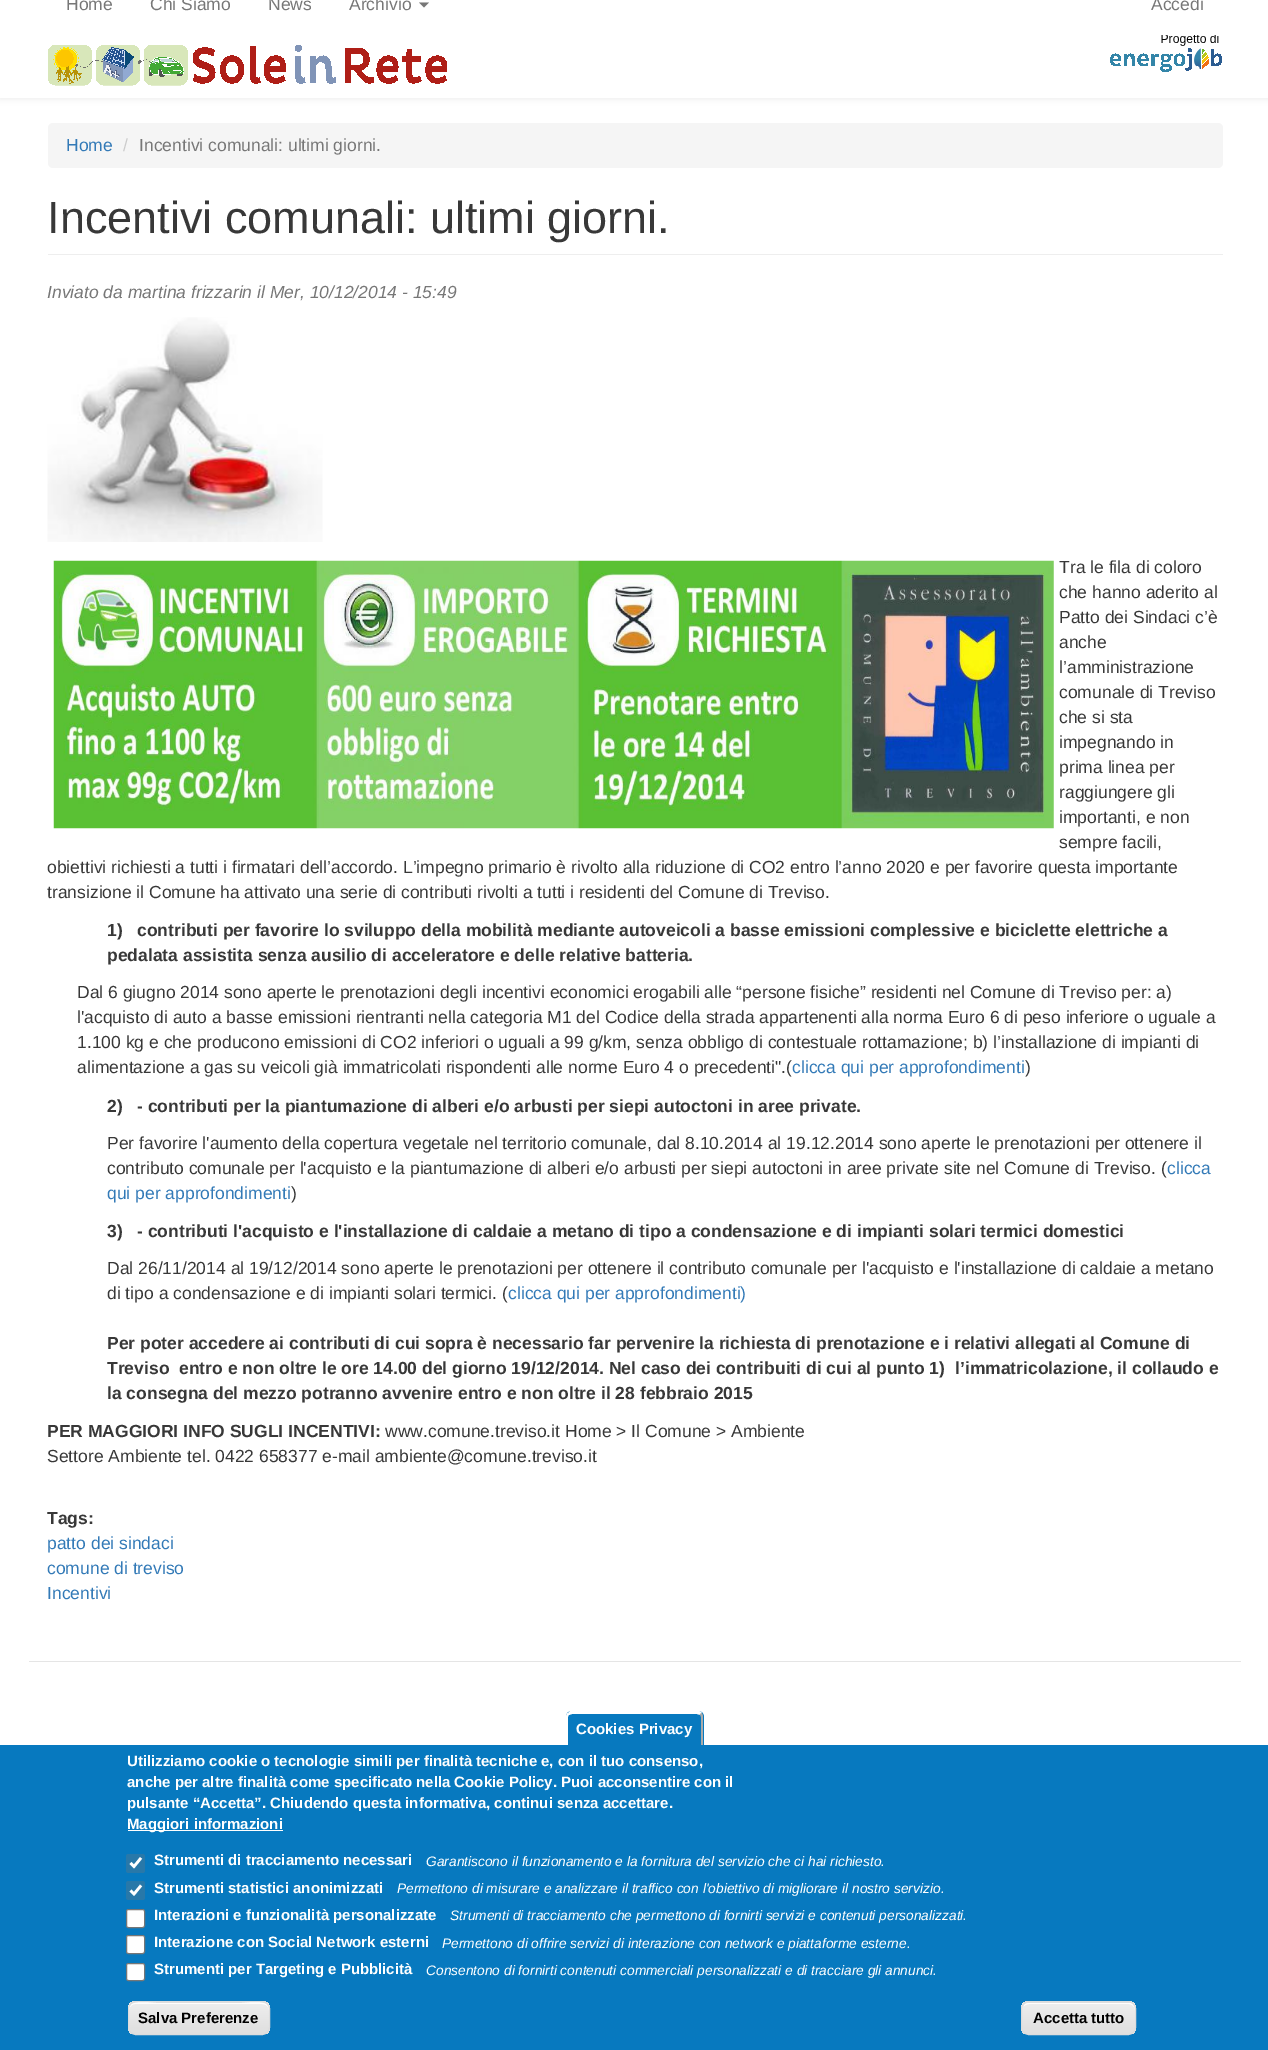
%!PS
<< /PageSize [1268 2050] /PageUsesTransparency true >> setpagedevice
/m/moveto load def
/l/rlineto load def
/c/rcurveto load def
/z/closepath load def
/f/fill load def
/s/stroke load def
/q/gsave load def
/Q_/grestore load def
/w/setlinewidth load def
/C { dup -16 bitshift 255 div exch dup -8 bitshift 255 and 255 div exch 255 and 255 div setrgbcolor } def
/F { [ exch dup neg 0 0 3 -1 roll 0 0 ] selectfont } def
/T { moveto show } def
/R { rectfill } def
/A { dup .setfillconstantalpha .setstrokeconstantalpha } def
/Q { 5 dict begin { /r /h /w /y /x } { exch def } forall
  x r add y moveto x w add y 2 copy h add r arct x w add y h add x 1 index r arct
  x y h add x y r arct x y 2 copy exch w add exch r arct closepath end } def
/S { 12 dict begin { /a /b /q /h /w /y /x } { exch def } forall gsave /was 0 def
  9 -2 -9 { dup b mul 4 div /e exch def 1 sub .425 mul 2.718 exch exp 1 add a .99 .min exch div /now exch def
    1 1 now sub 1 was sub div sub A /was now def
    w h .min e 2 mul add 0 gt { x e sub y e sub w e 2 mul add h e 2 mul add
      q e add b .6 mul add w h .min 2 div e add .min 0 .max Q fill } if } for grestore end } def
/I { 5 dict begin { /h /w /y /x /name } { exch def } forall
  gsave x y translate w h scale
  w h 8 [w 0 0 h 0 0] name (r) file false 3 colorimage grestore end } def
0 .pushpdf14devicefilter
0 2050 translate 1 -1 scale
4 setmiterlimit
16#FFFFFF C
0 0 1268 2050 R
q
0 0 m 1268 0 l 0 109 l -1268 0 l z 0 -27 m 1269 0 l 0 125 l -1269 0 l z eoclip newpath
16#000000 C
0 -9 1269 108 0 3 .07 S
Q_
/LiberationSans-Regular 17.5 F
16#777777 C
(Home) 66 10 T
(Chi Siamo) 150 10 T
(News) 268 10 T
(Archivio) 349 10 T
419 2.5 m 10 0 l -5 5 l z f
(Accedi) 1151 10 T
(1.rgb) 48 45 399 41 I
(2.rgb) 1110 35 112 37 I
16#F5F5F5 C
48 123 1175 45 5 Q f
16#337AB7 C
(Home) 66 151 T
16#CCCCCC C
(/) 123 151 T
16#777777 C
(Incentivi comunali: ultimi giorni.) 139 151 T
16#EEEEEE C
48 254 1175 1 R
/LiberationSans-Regular 45 F
16#383838 C
(Incentivi comunali: ultimi giorni.) 47 233 T
/LiberationSans-Italic 17.5 F
16#777777 C
(Inviato da martina frizzarin il Mer, 10/12/2014 - 15:49) 47 298 T
(3.rgb) 47 317 276 225 I
/LiberationSans-Regular 17.5 F
16#383838 C
(Tra le fila di coloro) 1059 573 T
(che hanno aderito al) 1059 598 T
(Patto dei Sindaci c’è) 1059 623 T
(anche) 1059 648 T
(l’amministrazione) 1059 673 T
(comunale di Treviso) 1059 698 T
(che si sta) 1059 723 T
(impegnando in) 1059 748 T
(prima linea per) 1059 773 T
(raggiungere gli) 1059 798 T
(importanti, e non) 1059 823 T
(sempre facili,) 1059 848 T
(obiettivi richiesti a tutti i firmatari dell’accordo. L’impegno primario è rivolto alla riduzione di CO2 entro l’anno 2020 e per favorire questa importante) 47 873 T
(transizione il Comune ha attivato una serie di contributi rivolti a tutti i residenti del Comune di Treviso.) 47 898 T
(4.rgb) 53 560 1001 269 I
/LiberationSans-Bold 17.5 F
(1\)) 107 936 T
(contributi per favorire lo sviluppo della mobilità mediante autoveicoli a basse emissioni complessive e biciclette elettriche a) 137 936 T
(pedalata assistita senza ausilio di acceleratore e delle relative batteria.) 107 961 T
/LiberationSans-Regular 17.5 F
(Dal 6 giugno 2014 sono aperte le prenotazioni degli incentivi economici erogabili alle “persone fisiche” residenti nel Comune di Treviso per: a\)) 77 998 T
(l'acquisto di auto a basse emissioni rientranti nella categoria M1 del Codice della strada appartenenti alla norma Euro 6 di peso inferiore o uguale a) 77 1023 T
(1.100 kg e che producono emissioni di CO2 inferiori o uguali a 99 g/km, senza obbligo di contestuale rottamazione; b\) l’installazione di impianti di) 77 1048 T
(alimentazione a gas su veicoli già immatricolati rispondenti alle norme Euro 4 o precedenti".\() 77 1073 T
16#337AB7 C
(clicca qui per approfondimenti) 792 1073 T
16#383838 C
(\)) 1025 1073 T
/LiberationSans-Bold 17.5 F
(2\)) 107 1112 T
(- contributi per la piantumazione di alberi e/o arbusti per siepi autoctoni in aree private.) 137 1112 T
/LiberationSans-Regular 17.5 F
(Per favorire l'aumento della copertura vegetale nel territorio comunale, dal 8.10.2014 al 19.12.2014 sono aperte le prenotazioni per ottenere il) 107 1149 T
(contributo comunale per l'acquisto e la piantumazione di alberi e/o arbusti per siepi autoctoni in aree private site nel Comune di Treviso. \() 107 1174 T
16#337AB7 C
(clicca) 1167 1174 T
(qui per approfondimenti) 107 1199 T
16#383838 C
(\)) 291 1199 T
/LiberationSans-Bold 17.5 F
(3\)) 107 1237 T
(- contributi l'acquisto e l'installazione di caldaie a metano di tipo a condensazione e di impianti solari termici domestici) 137 1237 T
/LiberationSans-Regular 17.5 F
(Dal 26/11/2014 al 19/12/2014 sono aperte le prenotazioni per ottenere il contributo comunale per l'acquisto e l'installazione di caldaie a metano) 107 1274 T
(di tipo a condensazione e di impianti solari termici. \() 107 1299 T
16#337AB7 C
(clicca qui per approfondimenti\)) 508 1299 T
/LiberationSans-Bold 17.5 F
16#383838 C
(Per poter accedere ai contributi di cui sopra è necessario far pervenire la richiesta di prenotazione e i relativi allegati al Comune di) 107 1349 T
(Treviso  entro e non oltre le ore 14.00 del giorno 19/12/2014. Nel caso dei contribuiti di cui al punto 1\)) 107 1374 T
(l’immatricolazione, il collaudo e) 955 1374 T
(la consegna del mezzo potranno avvenire entro e non oltre il 28 febbraio 2015) 107 1399 T
(PER MAGGIORI INFO SUGLI INCENTIVI:) 47 1437 T
/LiberationSans-Regular 17.5 F
(www.comune.treviso.it Home > Il Comune > Ambiente) 385 1437 T
(Settore Ambiente tel. 0422 658377 e-mail ambiente@comune.treviso.it) 47 1462 T
/LiberationSans-Bold 17.5 F
(Tags:) 47 1524 T
/LiberationSans-Regular 17.5 F
16#337AB7 C
(patto dei sindaci) 47 1549 T
(comune di treviso) 47 1574 T
(Incentivi) 47 1599 T
16#E5E5E5 C
29 1661 1212 1 R
16#0779BF C
0 1745 1268 305 R
572 1711 m 126 0 l 3.5 0 6 2.5 6 6 c 0 28 l -138 0 l 0 -28 l 0 -3.5 2.5 -6 6 -6 c z f
16#FFFFFF C
572 1714 m -3 1 l -1 -2 l 1 -1 2 -2 3 -2 c 127 0 l 2 0 3 1 4 2 c -2 2 l -3 -1 l z f
16#AAAAAA C
701 1745 m 0 -28 l 0 -1 -.5 -2 -1.5 -2.5 c 2 -1.5 l 1 1 1.5 2.5 1.5 4 c 0 28 l z f
16#FFFFFF C
566 1745 m 0 -28 l 0 -1.5 .5 -3 1.5 -4 c 2 1.5 l -1 .5 -1.5 1.5 -1.5 2.5 c 0 28 l z f
/LiberationSans-Bold 15 F
(Cookies Privacy) 576 1734 T
(Utilizziamo cookie o tecnologie simili per finalità tecniche e, con il tuo consenso,) 127 1766 T
(anche per altre finalità come specificato nella Cookie Policy. Puoi acconsentire con il) 127 1787 T
(pulsante “Accetta”. Chiudendo questa informativa, continui senza accettare.) 127 1808 T
128 1830 155 1 R
(Maggiori informazioni) 127 1829 T
16#2878A9 C
126 1854 19 19 2.5 Q f
16#FFFFFF C
2.6 w
130.5 1863 m 3.5 3.5 l 7 -8.5 l s
(Strumenti di tracciamento necessari) 154 1865 T
/LiberationSans-Italic 13.75 F
(Garantiscono il funzionamento e la fornitura del servizio che ci hai richiesto.) 426 1866 T
16#2878A9 C
126 1881 19 19 2.5 Q f
16#FFFFFF C
130.5 1890.5 m 3.5 3.5 l 7 -8.5 l s
/LiberationSans-Bold 15 F
(Strumenti statistici anonimizzati) 154 1893 T
/LiberationSans-Italic 13.75 F
(Permettono di misurare e analizzare il traffico con l'obiettivo di migliorare il nostro servizio.) 397 1893 T
126.5 1909.5 18 18 2 Q q f Q_
16#767676 C
1 w
s
/LiberationSans-Bold 15 F
16#FFFFFF C
(Interazioni e funzionalità personalizzate) 154 1920 T
/LiberationSans-Italic 13.75 F
(Strumenti di tracciamento che permettono di fornirti servizi e contenuti personalizzati.) 450 1920 T
126.5 1935.5 18 18 2 Q q f Q_
16#767676 C
s
/LiberationSans-Bold 15 F
16#FFFFFF C
(Interazione con Social Network esterni) 154 1947 T
/LiberationSans-Italic 13.75 F
(Permettono di offrire servizi di interazione con network e piattaforme esterne.) 442 1948 T
126.5 1963.5 18 17 2 Q q f Q_
16#767676 C
s
/LiberationSans-Bold 15 F
16#FFFFFF C
(Strumenti per Targeting e Pubblicità) 154 1974 T
/LiberationSans-Italic 13.75 F
(Consentono di fornirti contenuti commerciali personalizzati e di tracciare gli annunci.) 426 1975 T
q
128 2001 142 34 8 Q clip newpath
q 128 2001 m 142 0 l 0 2 l -142 0 l z clip newpath
<< /ShadingType 2 /ColorSpace /DeviceRGB /Coords [199 1971 199 2003] /Extend [true true] /Function << /FunctionType 3 /Domain [0 1] /Functions [<< /FunctionType 2 /Domain [0 1] /C0 [.929 .929 .929] /C1 [.929 .929 .929] /N 1 >> << /FunctionType 2 /Domain [0 1] /C0 [.929 .929 .929] /C1 [.875 .875 .875] /N 1 >>] /Bounds [.05] /Encode [0 1 0 1] >> >> shfill Q_
q 128 2003 m 142 0 l 0 31 l -142 0 l z clip newpath
<< /ShadingType 2 /ColorSpace /DeviceRGB /Coords [199 2003 199 2034] /Extend [true true] /Function << /FunctionType 3 /Domain [0 1] /Functions [<< /FunctionType 2 /Domain [0 1] /C0 [.929 .929 .929] /C1 [.929 .929 .929] /N 1 >> << /FunctionType 2 /Domain [0 1] /C0 [.929 .929 .929] /C1 [.875 .875 .875] /N 1 >>] /Bounds [.05] /Encode [0 1 0 1] >> >> shfill Q_
Q_
135 2004 m 127 0 l 4 0 7 3 7 6 c 0 -12 -23 -7 -27 -7 c -86 0 l -4 0 -27 -5 -27 7 c 0 -3 3 -6 6 -6 c z f
16#DCDCDC C
128.5 2001.5 141 33 7.5 Q s
/LiberationSans-Bold 15 F
16#000000 C
(Salva Preferenze) 138 2023 T
q
1021 2001 115 34 8 Q clip newpath
q 1021 2001 m 115 0 l 0 2 l -115 0 l z clip newpath
<< /ShadingType 2 /ColorSpace /DeviceRGB /Coords [1079 1971 1079 2003] /Extend [true true] /Function << /FunctionType 3 /Domain [0 1] /Functions [<< /FunctionType 2 /Domain [0 1] /C0 [.929 .929 .929] /C1 [.929 .929 .929] /N 1 >> << /FunctionType 2 /Domain [0 1] /C0 [.929 .929 .929] /C1 [.875 .875 .875] /N 1 >>] /Bounds [.05] /Encode [0 1 0 1] >> >> shfill Q_
q 1021 2003 m 115 0 l 0 31 l -115 0 l z clip newpath
<< /ShadingType 2 /ColorSpace /DeviceRGB /Coords [1079 2003 1079 2034] /Extend [true true] /Function << /FunctionType 3 /Domain [0 1] /Functions [<< /FunctionType 2 /Domain [0 1] /C0 [.929 .929 .929] /C1 [.929 .929 .929] /N 1 >> << /FunctionType 2 /Domain [0 1] /C0 [.929 .929 .929] /C1 [.875 .875 .875] /N 1 >>] /Bounds [.05] /Encode [0 1 0 1] >> >> shfill Q_
Q_
16#FFFFFF C
1029 2004 m 100 0 l 3 0 6 3 6 6 c 0 -1 l 0 -3 -3 -6 -6 -6 c -100 0 l -2 0 -4 1 -5 3 c 1 -1 3 -2 5 -2 c z f
16#DCDCDC C
1021.5 2001.5 114 33 7.5 Q s
16#000000 C
(Accetta tutto) 1033 2023 T
.poppdf14devicefilter showpage
